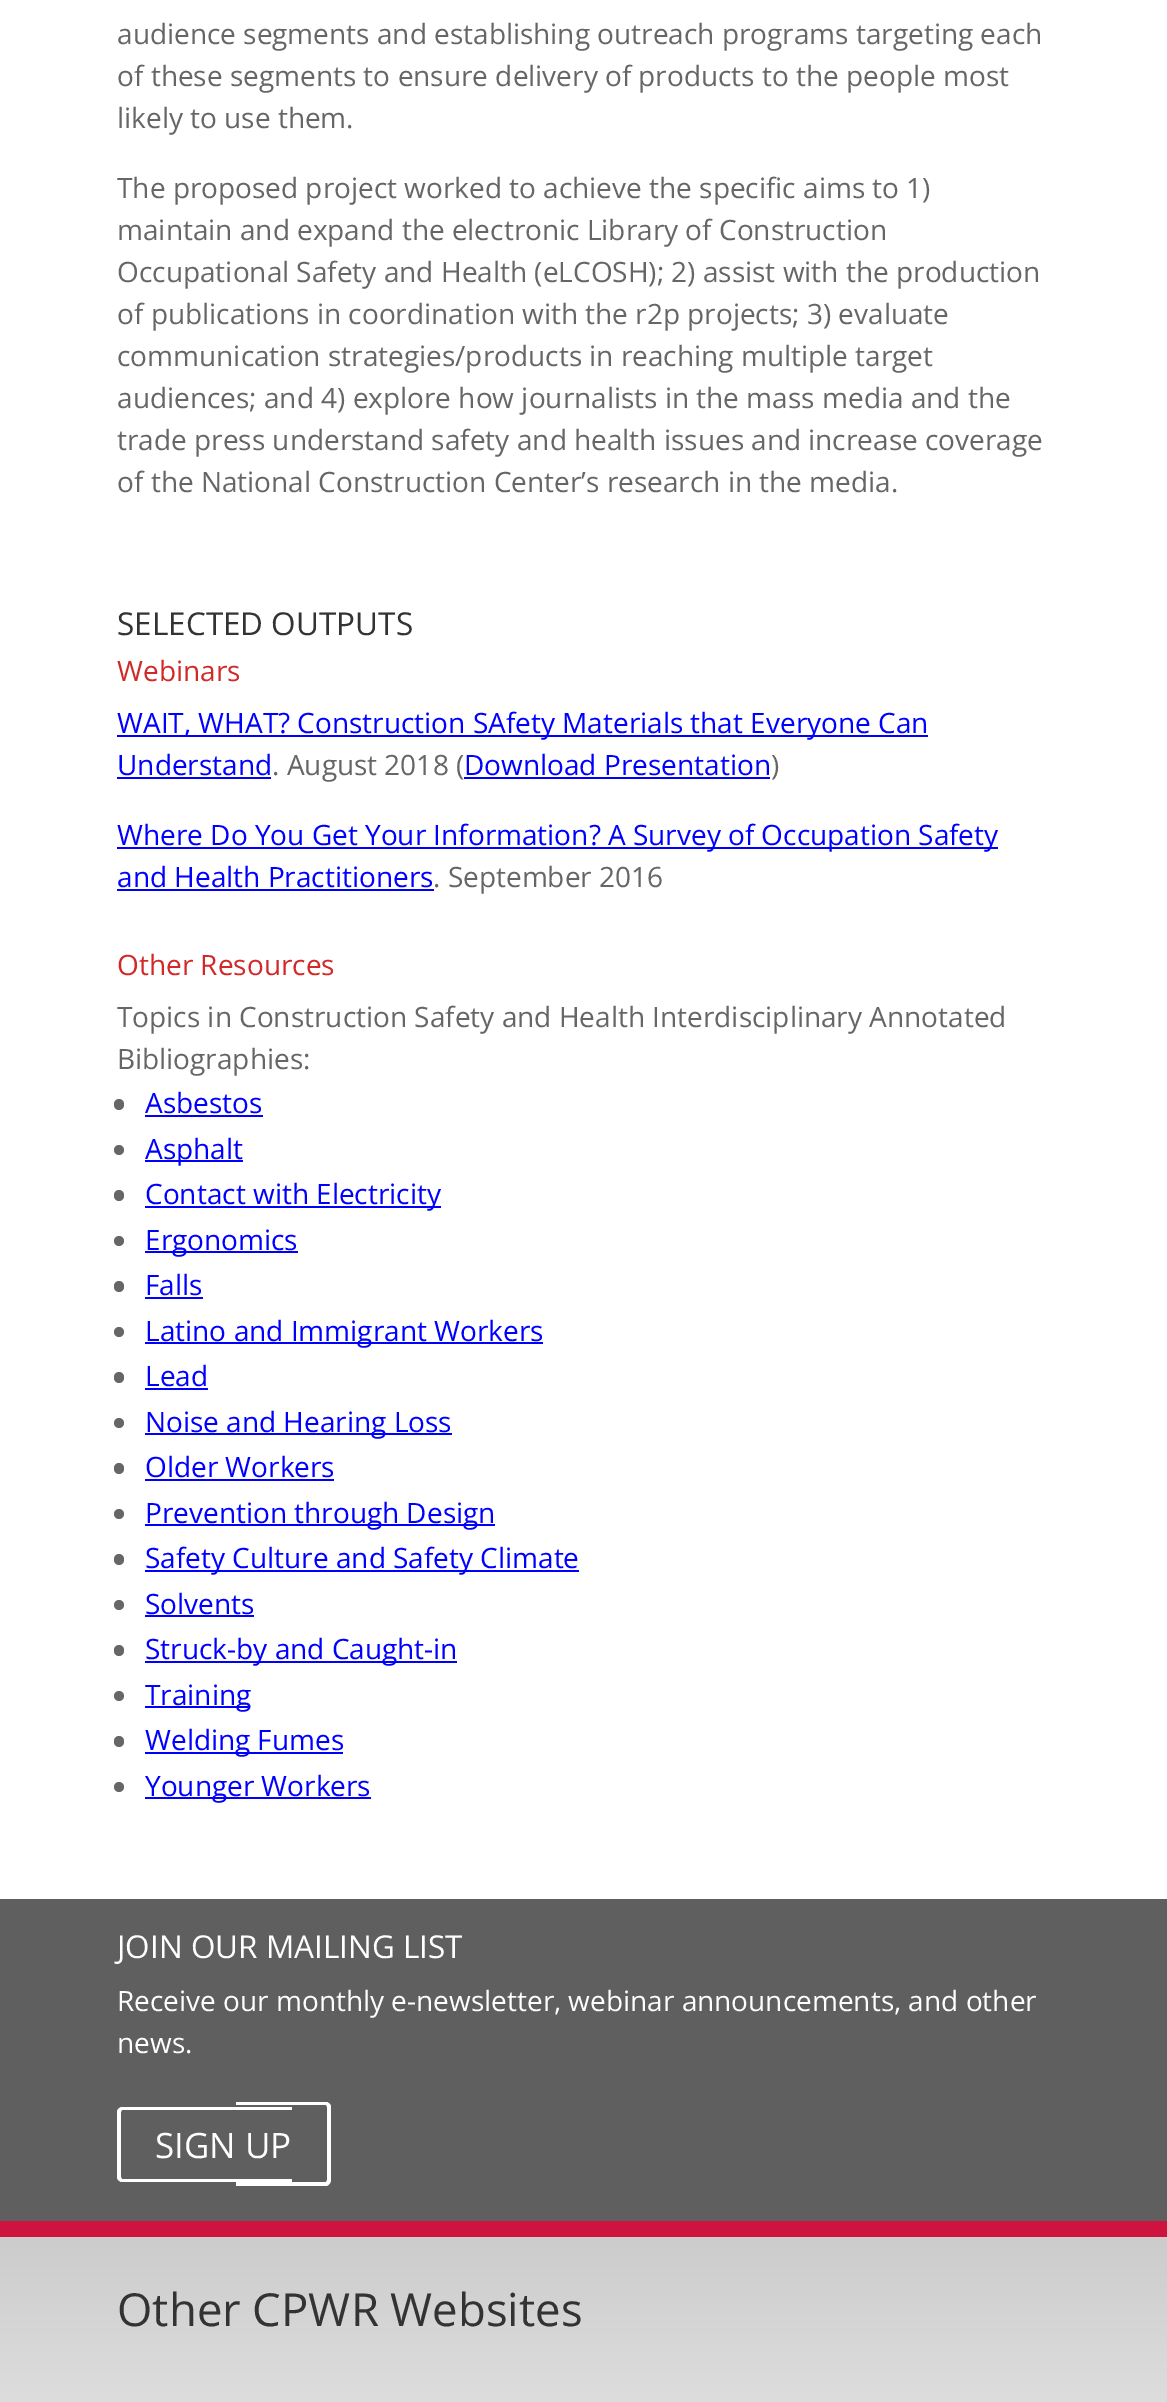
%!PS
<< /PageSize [1167 2402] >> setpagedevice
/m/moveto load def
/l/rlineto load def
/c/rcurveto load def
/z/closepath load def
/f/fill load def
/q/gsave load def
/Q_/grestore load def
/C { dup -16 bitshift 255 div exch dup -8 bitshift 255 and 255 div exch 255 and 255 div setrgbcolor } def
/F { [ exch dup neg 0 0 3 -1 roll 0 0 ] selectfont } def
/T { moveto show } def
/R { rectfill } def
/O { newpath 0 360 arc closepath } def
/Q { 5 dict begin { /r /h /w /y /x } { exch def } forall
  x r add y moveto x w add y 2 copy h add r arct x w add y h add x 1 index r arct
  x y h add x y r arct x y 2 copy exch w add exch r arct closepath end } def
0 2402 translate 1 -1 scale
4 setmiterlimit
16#FFFFFF C
0 0 1167 2402 R
/OpenSans-Regular 28 F
16#666666 C
(audience segments and establishing outreach programs targeting each) 117 44 T
(of these segments to ensure delivery of products to the people most) 117 86 T
(likely to use them.) 117 128 T
(The proposed project worked to achieve the specific aims to 1\)) 117 198 T
(maintain and expand the electronic Library of Construction) 117 240 T
(Occupational Safety and Health \(eLCOSH\); 2\) assist with the production) 117 282 T
(of publications in coordination with the r2p projects; 3\) evaluate) 117 324 T
(communication strategies/products in reaching multiple target) 117 366 T
(audiences; and 4\) explore how journalists in the mass media and the) 117 408 T
(trade press understand safety and health issues and increase coverage) 117 450 T
(of the National Construction Center’s research in the media.) 117 492 T
/OpenSans-Regular 31.5 F
16#333333 C
(SELECTED OUTPUTS) 117 635 T
/OpenSans-Regular 28 F
16#D12828 C
(Webinars) 117 681 T
16#0000FF C
117 735 811 2 R
(WAIT, WHAT? Construction SAfety Materials that Everyone Can) 117 733 T
(Understand) 117 775 T
117 777 154 2 R
16#666666 C
(. August 2018 \() 272 775 T
16#0000FF C
(Download Presentation) 464 775 T
464 777 306 2 R
16#666666 C
(\)) 771 775 T
16#0000FF C
117 847 881 2 R
(Where Do You Get Your Information? A Survey of Occupation Safety) 117 845 T
(and Health Practitioners) 117 887 T
117 889 317 2 R
16#666666 C
(. September 2016) 433 887 T
16#D12828 C
(Other Resources) 117 975 T
16#666666 C
(Topics in Construction Safety and Health Interdisciplinary Annotated) 117 1027 T
(Bibliographies:) 117 1069 T
114 1099 10 11 5 Q f
16#0000FF C
(Asbestos) 145 1113 T
145 1115 118 2 R
16#666666 C
119 1150 5 O f
16#0000FF C
145 1160 98 2 R
(Asphalt) 145 1159 T
16#666666 C
114 1190 10 11 5 Q f
16#0000FF C
145 1206 296 2 R
(Contact with Electricity) 145 1204 T
16#666666 C
119 1241 5 O f
16#0000FF C
145 1251 153 2 R
(Ergonomics) 145 1250 T
16#666666 C
114 1281 10 11 5 Q f
16#0000FF C
(Falls) 145 1295 T
145 1297 58 2 R
16#666666 C
119 1332 5 O f
16#0000FF C
145 1342 398 2 R
(Latino and Immigrant Workers) 145 1341 T
16#666666 C
114 1372 10 11 5 Q f
16#0000FF C
(Lead) 145 1386 T
145 1388 63 2 R
16#666666 C
119 1423 5 O f
16#0000FF C
145 1433 307 2 R
(Noise and Hearing Loss) 145 1432 T
16#666666 C
114 1463 10 11 5 Q f
16#0000FF C
(Older Workers) 145 1477 T
145 1479 189 2 R
16#666666 C
119 1514 5 O f
16#0000FF C
145 1524 350 2 R
(Prevention through Design) 145 1523 T
16#666666 C
114 1554 10 11 5 Q f
16#0000FF C
145 1570 434 2 R
(Safety Culture and Safety Climate) 145 1568 T
16#666666 C
119 1605 5 O f
16#0000FF C
(Solvents) 145 1614 T
145 1615 109 2 R
16#666666 C
114 1645 10 11 5 Q f
16#0000FF C
145 1661 312 2 R
(Struck-by and Caught-in) 145 1659 T
16#666666 C
119 1696 5 O f
16#0000FF C
145 1706 105 2 R
(Training) 145 1705 T
16#666666 C
114 1736 10 11 5 Q f
16#0000FF C
145 1752 198 2 R
(Welding Fumes) 145 1750 T
16#666666 C
119 1787 5 O f
16#0000FF C
145 1797 226 2 R
(Younger Workers) 145 1796 T
16#5F5F5F C
0 1899 1167 322 R
/OpenSans-Regular 31.5 F
16#FFFFFF C
(JOIN OUR MAILING LIST) 117 1958 T
/OpenSans-Regular 28 F
(Receive our monthly e-newsletter, webinar announcements, and other) 117 2011 T
(news.) 117 2053 T
122 2107 m 170 0 l 0 75 l -170 0 l -2 0 -5 -2 -5 -5 c 0 -65 l 0 -3 3 -5 5 -5 c z 122 2110 m 170 0 l 0 69 l -170 0 l 0 0 -1 -1 -1 -2 c 0 -65 l 0 -1 1 -2 1 -2 c z eofill
236 2102 m 90 0 l 2 0 5 2 5 5 c 0 73 l 0 3 -3 6 -5 6 c -90 0 l z 236 2105 m 90 0 l 0 0 1 1 1 2 c 0 73 l 0 1 -1 2 -1 2 c -90 0 l z eofill
/OpenSans-Regular 35 F
(SIGN UP) 155 2158 T
q 0 2237 m 1167 0 l 0 165 l -1167 0 l z clip newpath
<< /ShadingType 2 /ColorSpace /DeviceRGB /Coords [584 2237 584 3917] /Extend [true true] /Function << /FunctionType 3 /Domain [0 1] /Functions [<< /FunctionType 2 /Domain [0 1] /C0 [.8 .8 .8] /C1 [1 1 1] /N 1 >> << /FunctionType 2 /Domain [0 1] /C0 [1 1 1] /C1 [1 1 1] /N 1 >>] /Bounds [.3] /Encode [0 1 0 1] >> >> shfill Q_
16#CF123E C
0 2221 1167 16 R
/OpenSans-Regular 45.5 F
16#333333 C
(Other CPWR Websites) 117 2326 T
showpage
